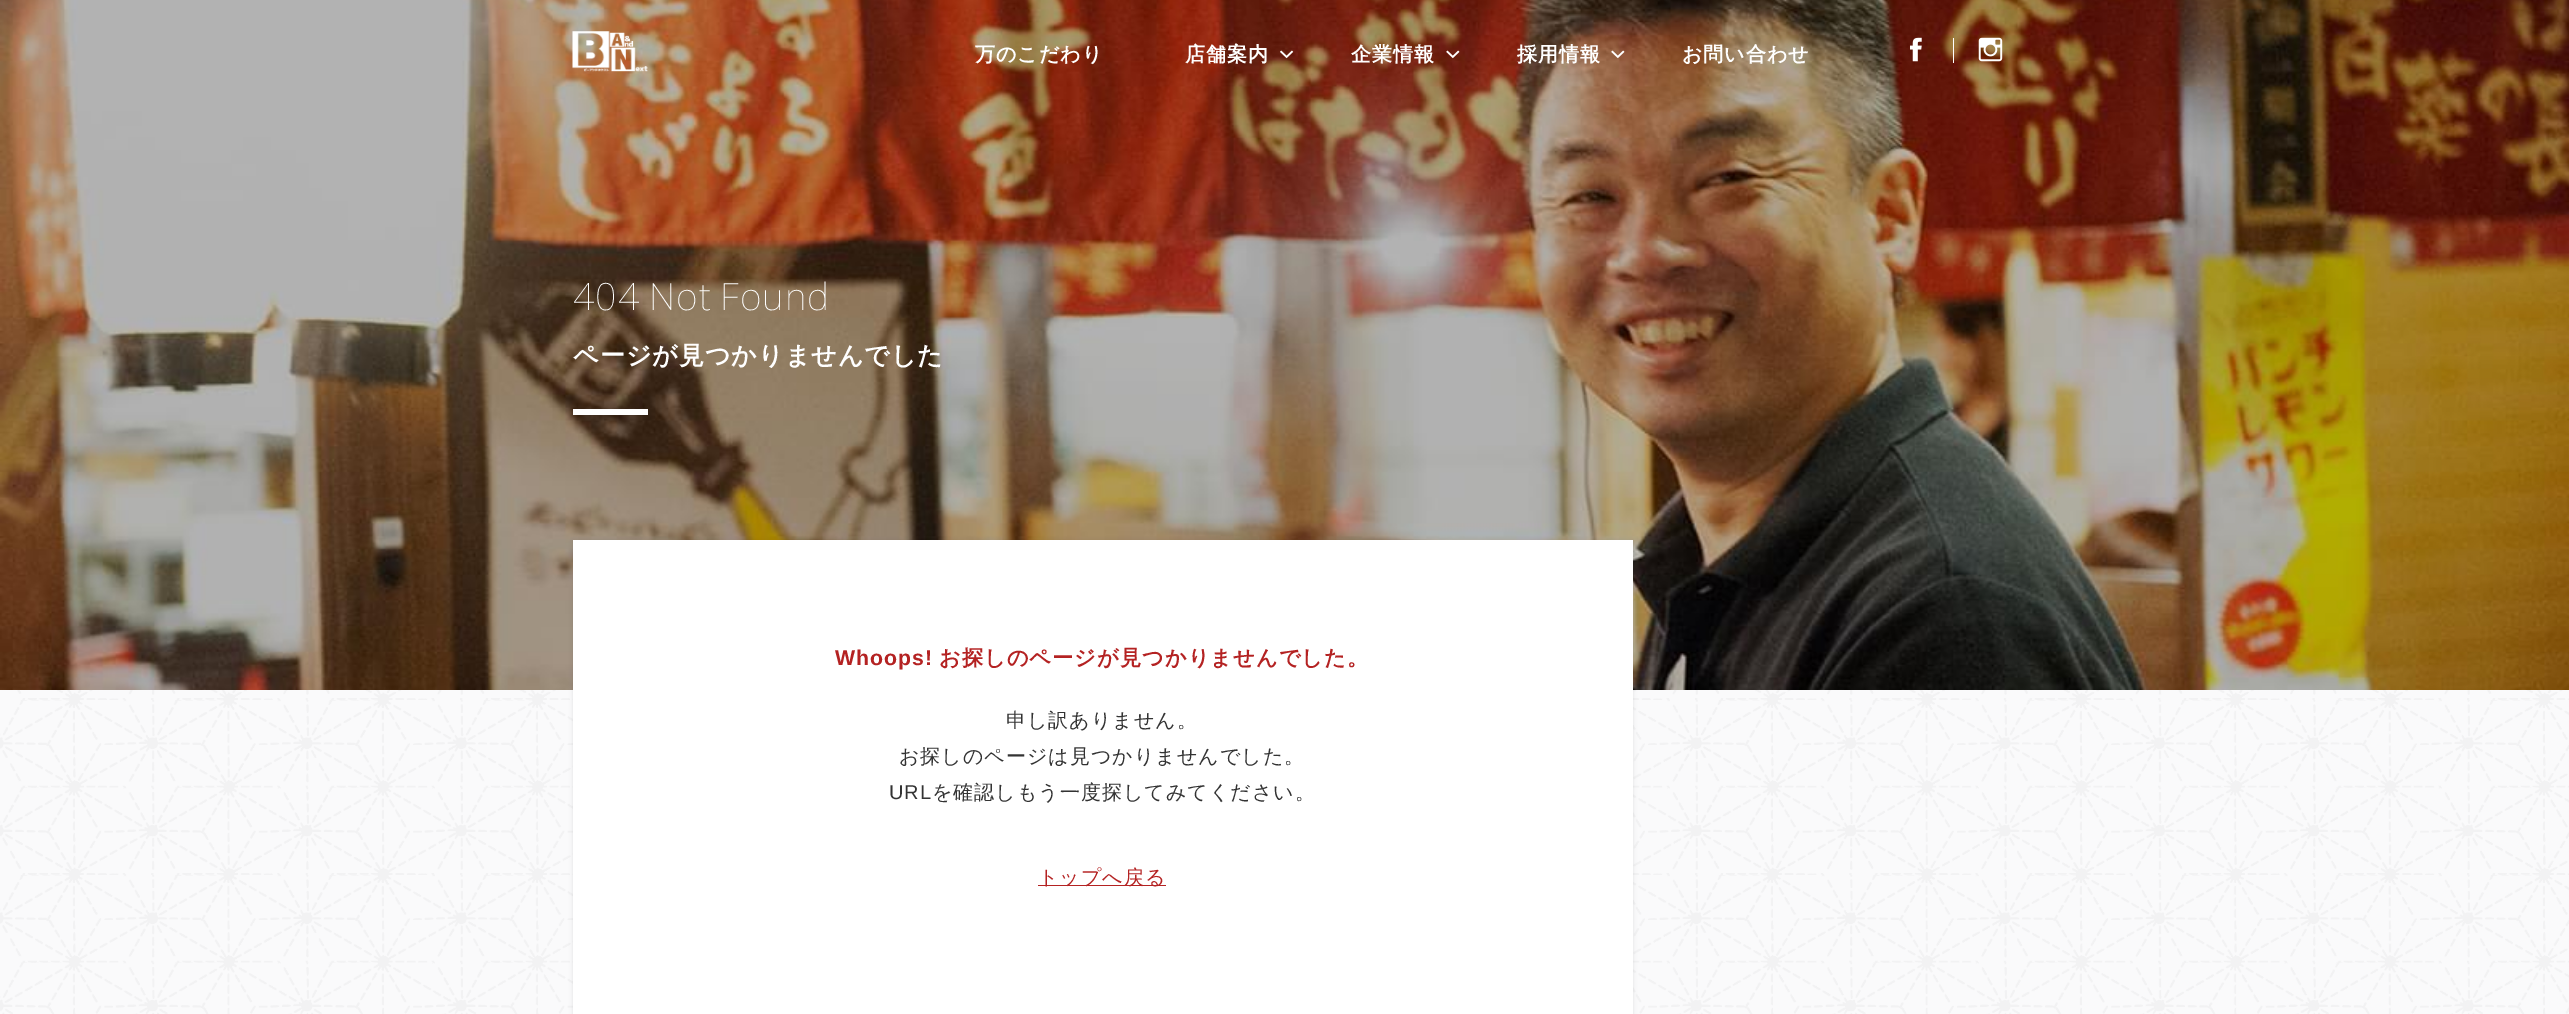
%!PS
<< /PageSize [2569 1014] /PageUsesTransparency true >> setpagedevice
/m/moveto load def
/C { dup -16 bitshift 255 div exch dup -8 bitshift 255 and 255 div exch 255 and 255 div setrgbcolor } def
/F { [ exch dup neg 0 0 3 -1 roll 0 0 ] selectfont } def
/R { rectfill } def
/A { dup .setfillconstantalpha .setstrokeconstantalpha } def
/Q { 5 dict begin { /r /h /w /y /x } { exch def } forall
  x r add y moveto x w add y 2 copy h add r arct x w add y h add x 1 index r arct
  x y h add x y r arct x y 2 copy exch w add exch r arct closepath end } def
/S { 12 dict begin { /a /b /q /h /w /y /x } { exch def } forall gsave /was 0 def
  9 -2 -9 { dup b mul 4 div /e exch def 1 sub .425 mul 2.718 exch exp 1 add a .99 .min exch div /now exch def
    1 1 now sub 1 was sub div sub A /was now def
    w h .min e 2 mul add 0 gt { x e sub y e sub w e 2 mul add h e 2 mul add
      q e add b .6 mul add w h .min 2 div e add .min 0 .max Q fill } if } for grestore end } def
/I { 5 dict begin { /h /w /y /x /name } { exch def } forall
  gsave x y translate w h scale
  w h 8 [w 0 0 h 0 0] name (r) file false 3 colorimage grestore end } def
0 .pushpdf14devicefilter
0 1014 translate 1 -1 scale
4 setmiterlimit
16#FFFFFF C
0 0 2569 1014 R
(1.rgb) 0 690 2569 324 I
(8.rgb) 0 0 2569 690 I
(2.rgb) 572 31 76 41 I
/WenQuanYiZenHei-Bold 20 F
975 61 m 1 0 (万のこだわり) ashow
1185 61 m 1 0 (店舗案内) ashow
(3.rgb) 1280 50 14 9 I
1351 61 m 1 0 (企業情報) ashow
(4.rgb) 1446 50 14 9 I
1517 61 m 1 0 (採用情報) ashow
(5.rgb) 1611 50 14 9 I
1682 61 m 1 0 (お問い合わせ) ashow
(6.rgb) 1910 37 12 25 I
1953 38 1 25 R
(7.rgb) 1978 37 25 25 I
/NotoSans-Thin 37.5 F
573 310 m -2 0 32 1 0 (404 Not Found) awidthshow
/WenQuanYiZenHei-Bold 25 F
573 364 m 1 0 (ページが見つかりませんでした) ashow
573 409 75 6 R
16#000000 C
573 541 1060 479 0 2 .1 S
16#FFFFFF C
573 540 1060 474 R
/LiberationSans-Bold 21.25 F
16#B42222 C
835 665 m 1 0 (Whoops!) ashow
/WenQuanYiZenHei-Bold 21.25 F
939 665 m 1 0 (お探しのページが見つかりませんでした。) ashow
/WenQuanYiZenHei-Medium 20 F
16#333333 C
1006 727 m 1 0 (申し訳ありません。) ashow
899 763 m 1 0 (お探しのページは見つかりませんでした。) ashow
/LiberationSans-Regular 20 F
889 799 m 1 0 (URL) ashow
/WenQuanYiZenHei-Medium 20 F
932 799 m 1 0 (を確認しもう一度探してみてください。) ashow
16#B42222 C
1038 885 128 1 R
1038 884 m 1 0 (トップへ戻る) ashow
.poppdf14devicefilter showpage
